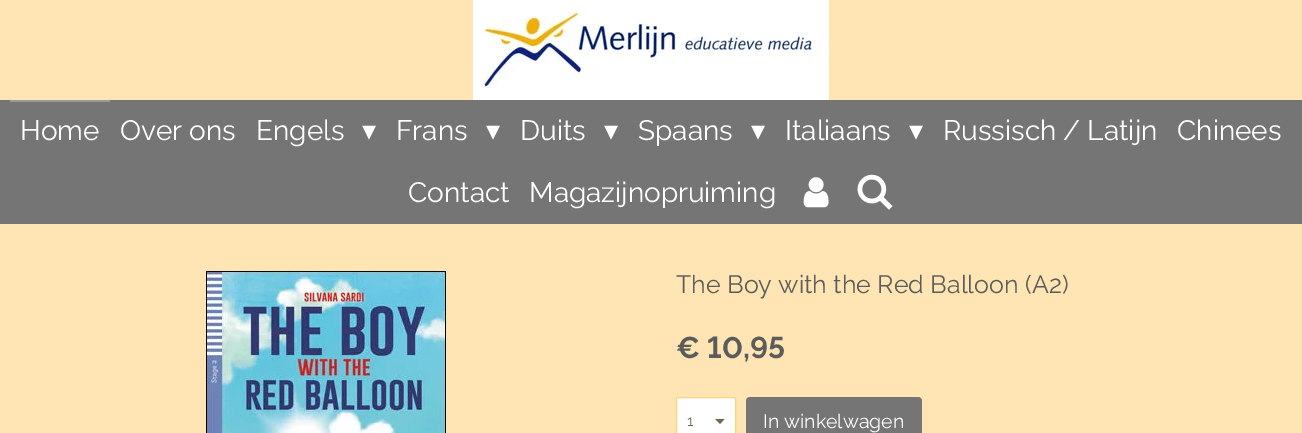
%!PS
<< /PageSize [1302 433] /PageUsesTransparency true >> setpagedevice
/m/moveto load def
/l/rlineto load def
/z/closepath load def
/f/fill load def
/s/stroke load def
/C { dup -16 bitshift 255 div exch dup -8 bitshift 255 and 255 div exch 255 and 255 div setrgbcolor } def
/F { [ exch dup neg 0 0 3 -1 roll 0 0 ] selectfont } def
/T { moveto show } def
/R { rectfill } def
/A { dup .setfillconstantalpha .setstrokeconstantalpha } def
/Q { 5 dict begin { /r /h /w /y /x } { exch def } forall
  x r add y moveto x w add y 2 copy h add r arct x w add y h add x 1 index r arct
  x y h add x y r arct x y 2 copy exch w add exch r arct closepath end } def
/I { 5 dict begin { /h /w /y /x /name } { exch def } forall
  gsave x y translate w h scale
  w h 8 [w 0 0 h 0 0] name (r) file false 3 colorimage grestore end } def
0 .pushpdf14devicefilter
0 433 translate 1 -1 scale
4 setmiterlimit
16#FFE5B3 C
0 0 1302 433 R
(1.rgb) 473 0 356 100 I
16#757575 C
0 100 1302 124 R
16#999999 C
10 100 100 2 R
/Raleway-Regular 28 F
16#FFFFFF C
(Home) 20 140 T
(Over ons) 120 140 T
(Engels) 256 140 T
/DejaVuSans-Regular 28 F
(▾) 362 140 T
/Raleway-Regular 28 F
(Frans) 396 140 T
/DejaVuSans-Regular 28 F
(▾) 486 140 T
/Raleway-Regular 28 F
(Duits) 520 140 T
/DejaVuSans-Regular 28 F
(▾) 604 140 T
/Raleway-Regular 28 F
(Spaans) 638 140 T
/DejaVuSans-Regular 28 F
(▾) 751 140 T
/Raleway-Regular 28 F
(Italiaans) 785 140 T
/DejaVuSans-Regular 28 F
(▾) 909 140 T
/Raleway-Regular 28 F
(Russisch / Latijn) 943 140 T
(Chinees) 1177 140 T
(Contact) 408 202 T
(Magazijnopruiming) 529 202 T
(2.rgb) 803 177 26 31 I
(3.rgb) 857 174 36 36 I
(4.rgb) 206 271 240 162 I
/Raleway-Regular 25 F
16#5C5C5C C
(The Boy with the Red Balloon \(A2\)) 676 293 T
/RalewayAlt-Bold 30 F
(€ 10,95) 676 358 T
16#FFFFFF C
676 397 60 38 2 Q f
16#736751 C
720 424 m -5 -5 l 9.5 0 l z f
0.5 A
16#FFA800 C
676.5 397.5 59 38 1.5 Q s
/Raleway-Regular 15 F
1 A
16#736751 C
(1) 687 426 T
16#757575 C
746 397 176 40 4 Q f
/Raleway-Regular 19.5 F
16#FFFFFF C
(In winkelwagen) 763 428 T
.poppdf14devicefilter showpage
